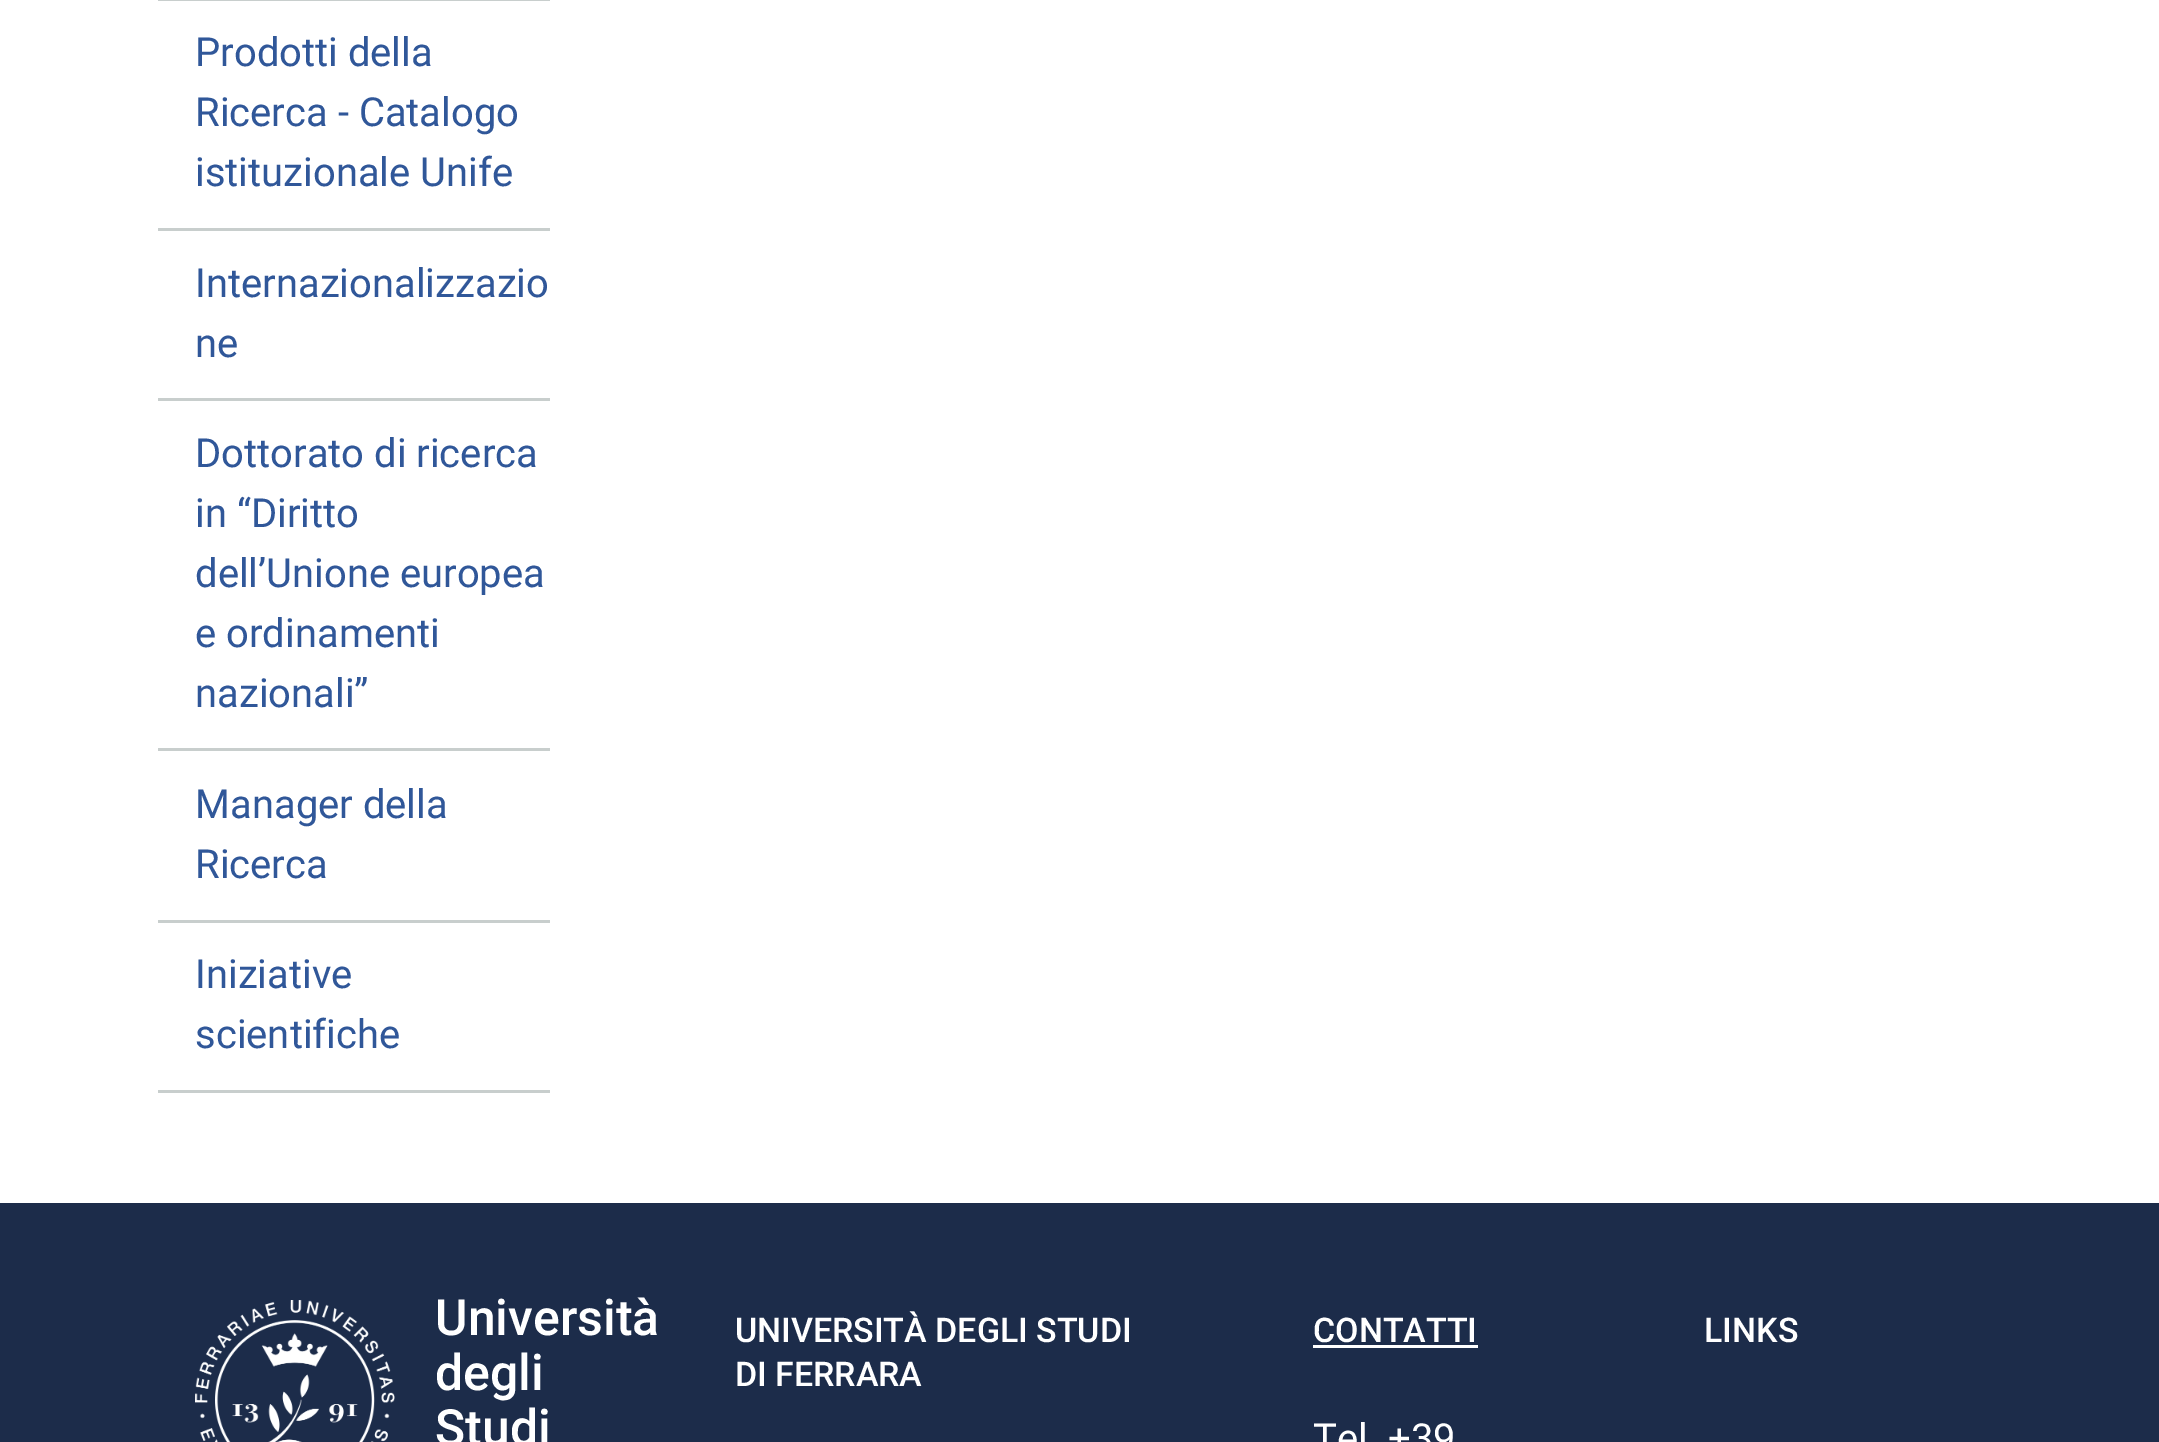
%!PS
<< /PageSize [2159 1442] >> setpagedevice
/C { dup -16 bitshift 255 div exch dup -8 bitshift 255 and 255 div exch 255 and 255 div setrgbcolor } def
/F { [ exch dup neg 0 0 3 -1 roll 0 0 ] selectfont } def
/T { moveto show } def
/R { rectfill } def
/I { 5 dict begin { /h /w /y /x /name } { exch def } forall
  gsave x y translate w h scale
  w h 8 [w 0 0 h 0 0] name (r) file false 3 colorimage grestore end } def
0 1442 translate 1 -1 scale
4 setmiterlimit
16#FFFFFF C
0 0 2159 1442 R
16#C8CECD C
158 0 392 1 R
158 228 392 3 R
/Roboto-Regular 40 F
16#305799 C
(Prodotti della) 195 66 T
(Ricerca - Catalogo) 195 126 T
(istituzionale Unife) 195 186 T
16#C8CECD C
158 398 392 3 R
16#305799 C
(Internazionalizzazio) 195 297 T
(ne) 195 357 T
16#C8CECD C
158 748 392 3 R
16#305799 C
(Dottorato di ricerca) 195 467 T
(in “Diritto) 195 527 T
(dell’Unione europea) 195 587 T
(e ordinamenti) 195 647 T
(nazionali”) 195 707 T
16#C8CECD C
158 920 392 3 R
16#305799 C
(Manager della) 195 818 T
(Ricerca) 195 878 T
16#C8CECD C
158 1090 392 3 R
16#305799 C
(Iniziative) 195 988 T
(scientifiche) 195 1048 T
16#1C2C4A C
0 1203 2159 239 R
(1.rgb) 195 1300 200 142 I
/Roboto-Medium 50 F
16#FFFFFF C
(Università) 435 1335 T
(degli) 435 1390 T
(Studi) 435 1445 T
/Roboto-Medium 34 F
(UNIVERSITÀ DEGLI STUDI) 735 1342 T
(DI FERRARA) 735 1386 T
(CONTATTI) 1313 1342 T
1313 1345 165 3 R
/Roboto-Regular 40 F
(Tel. +39) 1313 1452 T
/Roboto-Medium 34 F
(LINKS) 1704 1342 T
showpage
